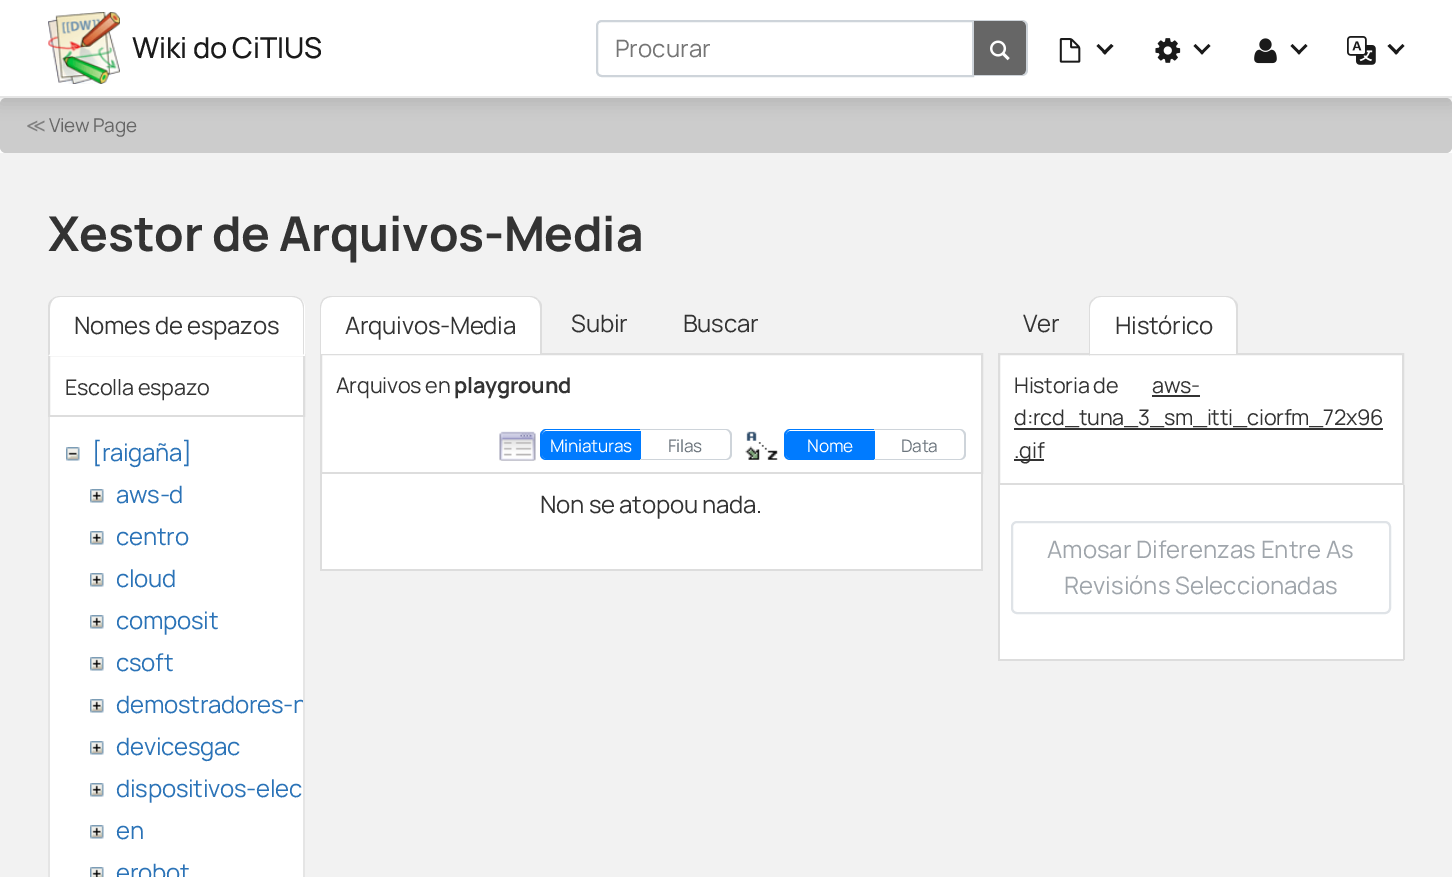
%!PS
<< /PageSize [1452 877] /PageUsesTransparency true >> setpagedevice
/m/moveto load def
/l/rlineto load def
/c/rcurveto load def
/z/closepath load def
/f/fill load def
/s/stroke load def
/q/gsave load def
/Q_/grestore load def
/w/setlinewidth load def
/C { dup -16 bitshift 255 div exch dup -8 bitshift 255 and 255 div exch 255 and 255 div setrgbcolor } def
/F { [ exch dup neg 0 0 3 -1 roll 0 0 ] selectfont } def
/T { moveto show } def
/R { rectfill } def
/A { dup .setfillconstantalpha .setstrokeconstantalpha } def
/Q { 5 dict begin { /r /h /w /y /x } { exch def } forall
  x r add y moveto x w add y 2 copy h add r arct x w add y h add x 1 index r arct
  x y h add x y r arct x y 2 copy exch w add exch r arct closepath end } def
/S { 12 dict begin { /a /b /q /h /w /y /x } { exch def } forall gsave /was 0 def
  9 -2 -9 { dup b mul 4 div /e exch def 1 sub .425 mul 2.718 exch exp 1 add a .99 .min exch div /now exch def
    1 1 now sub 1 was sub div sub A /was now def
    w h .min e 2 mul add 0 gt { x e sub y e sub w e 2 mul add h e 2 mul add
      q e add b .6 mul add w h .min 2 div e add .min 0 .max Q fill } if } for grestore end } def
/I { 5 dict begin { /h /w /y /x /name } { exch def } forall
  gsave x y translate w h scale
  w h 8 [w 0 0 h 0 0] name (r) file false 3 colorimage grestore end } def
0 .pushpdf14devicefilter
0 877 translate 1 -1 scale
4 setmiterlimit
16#FFFFFF C
0 0 1452 877 R
16#CCCCCC C
1 99 1450 53 5 Q q f Q_
2 w
s
16#000000 C
0 6 1452 98 0 7.5 .1 S
16#FFFFFF C
0 0 1452 96 R
16#E5E5E5 C
0 96 1452 2 R
(1.rgb) 48 12 72 72 I
/Manrope-Medium 28.75 F
16#1A1A1A C
132 58 m -.25 0 (Wiki do CiTIUS) ashow
16#CED4DA C
602 21 m 371 0 l 0 55 l -371 0 l -3 0 -5 -2 -5 -5 c 0 -45 l 0 -3 2 -5 5 -5 c z s
/Manrope-Regular 24 F
16#757575 C
(Procurar) 615 57 T
16#666666 C
974 21 m 47 0 l 3 0 5 2 5 5 c 0 44 l 0 3 -2 5 -5 5 c -47 0 l z f
16#CED4DA C
974 20 m 48 0 l 3 0 6 2 6 6 c 0 44 l 0 4 -3 6 -6 6 c -48 0 l z 974 21 m 48 0 l 2 0 4 2 4 5 c 0 44 l 0 3 -2 5 -4 5 c -48 0 l z eofill
(2.rgb) 990 40 20 21 I
(3.rgb) 1059 38 22 25 I
16#1A1A1A C
1102.5 52.5 m 8.5 -8.5 l 2.5 2 l -8.5 8.5 l z f
1096.5 46 m 2 -2 l 8.5 8.5 l -2 2 l z f
(4.rgb) 1155 38 26 25 I
1200 52.5 m 8.5 -8.5 l 2 2 l -8.5 8.5 l z f
1193.5 46 m 2 -2 l 8.5 8.5 l -2 2 l z f
(5.rgb) 1254 38 23 26 I
1297 52.5 m 8.5 -8.5 l 2 2 l -8.5 8.5 l z f
1290.5 46 m 2 -2 l 8.5 8.5 l -2 2 l z f
(6.rgb) 1347 36 29 29 I
1394 52.5 m 8.5 -8.5 l 2 2 l -8.5 8.5 l z f
1387.5 46 m 2.5 -2 l 8.5 8.5 l -2.5 2 l z f
/DejaVuSans-Regular 19 F
16#808080 C
26 132 m -.25 0 (≪) ashow
/Manrope-Regular 19 F
16#666666 C
49 132 m -.25 0 (View Page) ashow
16#F2F2F2 C
0 153 1452 724 R
/Manrope-Bold 48 F
16#333333 C
48 251 m -.25 0 (Xestor de Arquivos-Media) ashow
16#FFFFFF C
49 355 m 255 0 l 0 61 l -255 0 l z q f Q_
16#DDDDDD C
s
16#FFFFFF C
60 296 m 233 0 l 6.5 0 12 5.5 12 12 c 0 48 l -257 0 l 0 -48 l 0 -6.5 5.5 -12 12 -12 c z f
16#DDDDDD C
60 296 m -3 0 -6 1 -8 3 c 1 1 l 1 -2 4 -3 7 -3 c 232 0 l 3 0 6 1 8 3 c 1 -1 l -3 -2 -5 -3 -9 -3 c z f
304 355 m 0 -47 l 0 -4 -1 -6 -3 -9 c -1 1 l 2 2 3 5 3 8 c 0 46 l z f
16#FFFFFF C
304 356 m -256 0 l 2 -2 l 253 0 l z f
16#DDDDDD C
48 356 m 2 -2 l 0 -46 l 0 -3 1 -6 3 -8 c -1 -1 l -3 2 -4 5 -4 9 c z f
/Manrope-Regular 24 F
16#333333 C
74 334 m -.25 0 (Nomes de espazos) ashow
/Manrope-Regular 21.6 F
65 395 m -.25 0 (Escolla espazo) ashow
16#FFFFFF C
50 417 253 460 R
16#E5E5E5 C
303 417 2 460 R
48 417 2 460 R
(7.rgb) 66 447 14 14 I
/Manrope-Regular 24 F
16#2B73B7 C
92 461 m -.25 0 ([raigaña]) ashow
(8.rgb) 90 489 14 14 I
116 503 m -.25 0 (aws-d) ashow
(8.rgb) 90 531 14 14 I
116 545 m -.25 0 (centro) ashow
(8.rgb) 90 573 14 14 I
116 587 m -.25 0 (cloud) ashow
(8.rgb) 90 615 14 14 I
116 629 m -.25 0 (composit) ashow
(8.rgb) 90 657 14 14 I
116 671 m -.25 0 (csoft) ashow
(8.rgb) 90 699 14 14 I
q
50 417 253 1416 rectclip
116 713 m -.25 0 (demostradores-n) ashow
Q_
(8.rgb) 90 741 14 14 I
116 755 m -.25 0 (devicesgac) ashow
(8.rgb) 90 783 14 14 I
116 797 m -.25 0 (dispositivos-elec) ashow
(8.rgb) 90 825 14 14 I
116 839 m -.25 0 (en) ashow
(9.rgb) 90 867 14 10 I
116 881 m -.25 0 (erobot) ashow
16#FFFFFF C
321 354 m 661 0 l 0 119 l -661 0 l z q f Q_
16#DDDDDD C
s
16#FFFFFF C
332 296 m 198 0 l 6.5 0 12 5.5 12 12 c 0 46 l -222 0 l 0 -46 l 0 -6.5 5.5 -12 12 -12 c z f
16#DDDDDD C
332 296 m -4 0 -6 1 -9 3 c 1 1 l 2 -2 5 -3 8 -3 c 198 0 l 2 0 5 1 7 3 c 1 -1 l -2 -2 -5 -3 -8 -3 c z f
q
320 294 678 60 rectclip
538 299 m 2 2 3 3 4 6 c 0 51 l -2 -2 l 0 -46 l 0 -3 -1 -6 -3 -8 c z f
Q_
323 299 m -2 3 -3 5 -3 9 c 0 47 l 1 -1 l 0 -46 l 0 -3 1 -6 3 -8 c z f
16#333333 C
345 334 m -.25 0 (Arquivos-Media) ashow
571 332 m -.25 0 (Subir) ashow
683 332 m -.25 0 (Buscar) ashow
/Manrope-Regular 21.6 F
336 393 m -.25 0 (Arquivos en) ashow
/Manrope-Bold 21.6 F
454 393 m -.25 0 (playground) ashow
(10.rgb) 499 431 37 30 I
16#007BFF C
547 431 m 94 0 l 0 28 l -94 0 l -3 0 -5 -2 -5 -5 c 0 -18 l 0 -3 2 -5 5 -5 c z f
546 429 m 94 0 l 0 31 l -94 0 l -3 0 -6 -2 -6 -6 c 0 -19 l 0 -3 3 -6 6 -6 c z 546 430 m 94 0 l 0 29 l -94 0 l -2 0 -4 -2 -4 -5 c 0 -19 l 0 -2 2 -5 4 -5 c z eofill
/Manrope-Regular 17.25 F
16#FFFFFF C
550 452 m -.25 0 (Miniaturas) ashow
16#CED4DA C
640 429 m 86 0 l 3 0 6 3 6 6 c 0 19 l 0 4 -3 6 -6 6 c -86 0 l z 640 430 m 86 0 l 2 0 4 3 4 5 c 0 19 l 0 3 -2 5 -4 5 c -86 0 l z eofill
16#6C757D C
668 452 m -.25 0 (Filas) ashow
(11.rgb) 745 431 33 29 I
16#007BFF C
791 431 m 84 0 l 0 28 l -84 0 l -3 0 -5 -2 -5 -5 c 0 -18 l 0 -3 2 -5 5 -5 c z f
790 429 m 84 0 l 0 31 l -84 0 l -3 0 -6 -2 -6 -6 c 0 -19 l 0 -3 3 -6 6 -6 c z 790 430 m 84 0 l 0 29 l -84 0 l -2 0 -4 -2 -4 -5 c 0 -19 l 0 -2 2 -5 4 -5 c z eofill
16#FFFFFF C
807 452 m -.25 0 (Nome) ashow
16#CED4DA C
874 429 m 86 0 l 3 0 6 3 6 6 c 0 19 l 0 4 -3 6 -6 6 c -86 0 l z 874 430 m 86 0 l 2 0 4 3 4 5 c 0 19 l 0 3 -2 5 -4 5 c -86 0 l z eofill
16#6C757D C
901 452 m -.25 0 (Data) ashow
16#FFFFFF C
322 474 659 95 R
16#DDDDDD C
981 474 2 96 R
320 569 663 2 R
320 474 2 96 R
/Manrope-Regular 24 F
16#333333 C
540 513 m -.25 0 (Non se atopou nada.) ashow
1023 332 m -.25 0 (Ver) ashow
16#FFFFFF C
999 354 m 404 0 l 0 130 l -404 0 l z q f Q_
16#DDDDDD C
s
16#FFFFFF C
1101 296 m 125 0 l 6.5 0 12 5.5 12 12 c 0 46 l -149 0 l 0 -46 l 0 -6.5 5.5 -12 12 -12 c z f
16#DDDDDD C
1101 296 m -3 0 -6 1 -8 3 c 1 1 l 1 -2 4 -3 7 -3 c 125 0 l 2 0 5 1 7 3 c 1 -1 l -2 -2 -5 -3 -8 -3 c z f
q
998 294 406 60 rectclip
1234 299 m 2 2 3 3 4 6 c 0 51 l -2 -2 l 0 -46 l 0 -3 -1 -6 -3 -8 c z f
Q_
1089 356 m 1 -2 l 0 -46 l 0 -3 1 -6 4 -8 c -1 -1 l -3 2 -4 5 -4 9 c z f
16#333333 C
1115 334 m -.25 0 (Histórico) ashow
/Manrope-Regular 21.6 F
1014 393 m -.25 0 (Historia de) ashow
1152 393 m -.25 0 (aws-) ashow
1152 395 48 2 R
1014 425 m -.25 0 (d:rcd_tuna_3_sm_itti_ciorfm_72x96) ashow
1014 428 369 2 R
1014 459 30 2 R
1014 458 m -.25 0 (.gif) ashow
16#FFFFFF C
1000 485 403 174 R
16#DDDDDD C
1403 485 2 175 R
998 659 406 2 R
998 485 2 175 R
16#DFE3E7 C
1012 522 378 91 5 Q s
/Manrope-Regular 24 F
16#9FA5AB C
(Amosar Diferenzas Entre As) 1047 558 T
(Revisións Seleccionadas) 1064 594 T
.poppdf14devicefilter showpage
